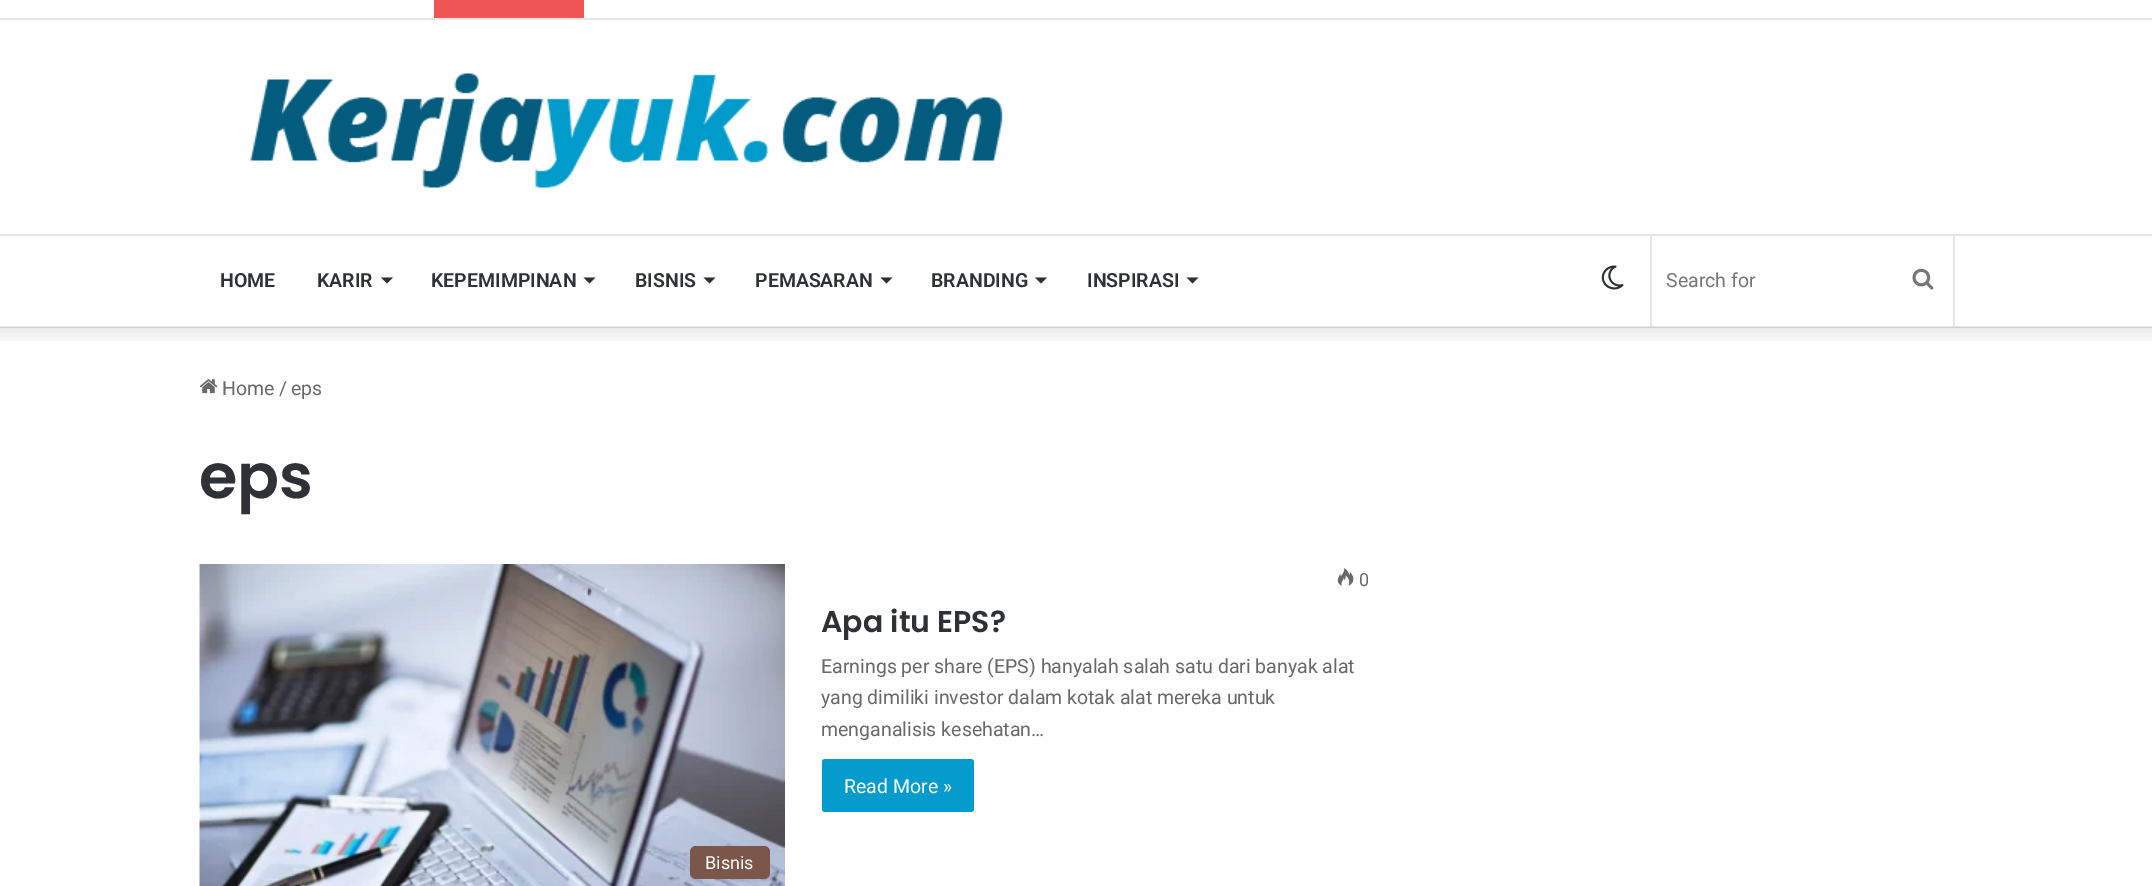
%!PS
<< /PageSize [2152 886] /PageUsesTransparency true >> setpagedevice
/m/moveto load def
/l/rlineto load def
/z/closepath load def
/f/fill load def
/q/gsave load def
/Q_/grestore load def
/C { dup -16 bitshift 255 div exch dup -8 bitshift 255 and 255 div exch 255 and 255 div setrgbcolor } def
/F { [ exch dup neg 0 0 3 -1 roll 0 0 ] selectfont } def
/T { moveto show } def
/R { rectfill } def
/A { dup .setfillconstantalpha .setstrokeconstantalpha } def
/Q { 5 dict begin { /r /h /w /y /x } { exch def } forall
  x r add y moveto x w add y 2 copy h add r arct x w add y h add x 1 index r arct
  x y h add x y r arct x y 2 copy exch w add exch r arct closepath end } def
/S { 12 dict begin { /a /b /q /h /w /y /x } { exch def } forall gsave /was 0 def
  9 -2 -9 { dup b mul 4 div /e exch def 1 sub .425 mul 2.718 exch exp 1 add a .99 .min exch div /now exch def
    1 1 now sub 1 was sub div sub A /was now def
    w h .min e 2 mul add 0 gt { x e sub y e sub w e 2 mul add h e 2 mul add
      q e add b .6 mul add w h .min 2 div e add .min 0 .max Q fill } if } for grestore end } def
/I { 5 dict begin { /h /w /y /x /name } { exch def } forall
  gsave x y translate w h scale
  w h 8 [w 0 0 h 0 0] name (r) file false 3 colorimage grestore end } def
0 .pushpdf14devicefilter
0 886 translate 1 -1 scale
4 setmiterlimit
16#FFFFFF C
0 0 2152 886 R
q
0 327 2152 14 rectclip
16#000000 C
-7 -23 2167 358 0 7.5 .1 S
Q_
16#E6E6E6 C
0 18 2152 2 R
16#F05555 C
434 0 150 18 R
(1.rgb) 250 73 753 115 I
16#E6E6E6 C
0 234 2152 2 R
0.1 A
16#000000 C
0 326 2152 2 R
/Roboto-SemiBold 19.5 F
1 A
16#2E3136 C
(HOME) 220 287 T
(KARIR) 317 287 T
16#2C2F34 C
381 277.5 m 12 0 l -6 6 l z f
16#2E3136 C
(KEPEMIMPINAN) 431 287 T
16#2C2F34 C
583.5 277.5 m 12 0 l -6 6 l z f
16#2E3136 C
(BISNIS) 635 287 T
16#2C2F34 C
703.5 277.5 m 12 0 l -6 6 l z f
16#2E3136 C
(PEMASARAN) 755 287 T
16#2C2F34 C
880.5 277.5 m 12 0 l -6 6 l z f
16#2E3136 C
(BRANDING) 931 287 T
16#2C2F34 C
1035 277.5 m 12 0 l -6 6 l z f
16#2E3136 C
(INSPIRASI) 1087 287 T
16#2C2F34 C
1186.5 277.5 m 12 0 l -6 6 l z f
(2.rgb) 1601 265 23 25 I
16#E6E6E6 C
1953 236 2 90 R
1650 236 2 90 R
/Roboto-Regular 19.5 F
16#757575 C
(Search for) 1666 287 T
(3.rgb) 1912 268 22 22 I
(4.rgb) 199 379 19 15 I
16#686868 C
(Home) 222 395 T
(/) 279 395 T
(eps) 291 395 T
/Poppins-SemiBold 62 F
16#2E3136 C
(eps) 199 498 T
(5.rgb) 1337 568 17 18 I
/Roboto-Regular 18 F
16#686868 C
(0) 1359 586 T
/Poppins-SemiBold 30 F
16#2E3136 C
(Apa itu EPS?) 821 632 T
/Roboto-Regular 19.5 F
16#686868 C
(Earnings per share \(EPS\) hanyalah salah satu dari banyak alat) 821 673 T
(yang dimiliki investor dalam kotak alat mereka untuk) 821 704 T
(menganalisis kesehatan…) 821 736 T
16#039CCC C
822 759 152 53 3 Q f
16#FFFFFF C
(Read More ») 844 793 T
(6.rgb) 199 564 586 322 I
16#7A574A C
690 846 80 33 6 Q f
/Roboto-Regular 18 F
16#FFFFFF C
(Bisnis) 705 869 T
.poppdf14devicefilter showpage
